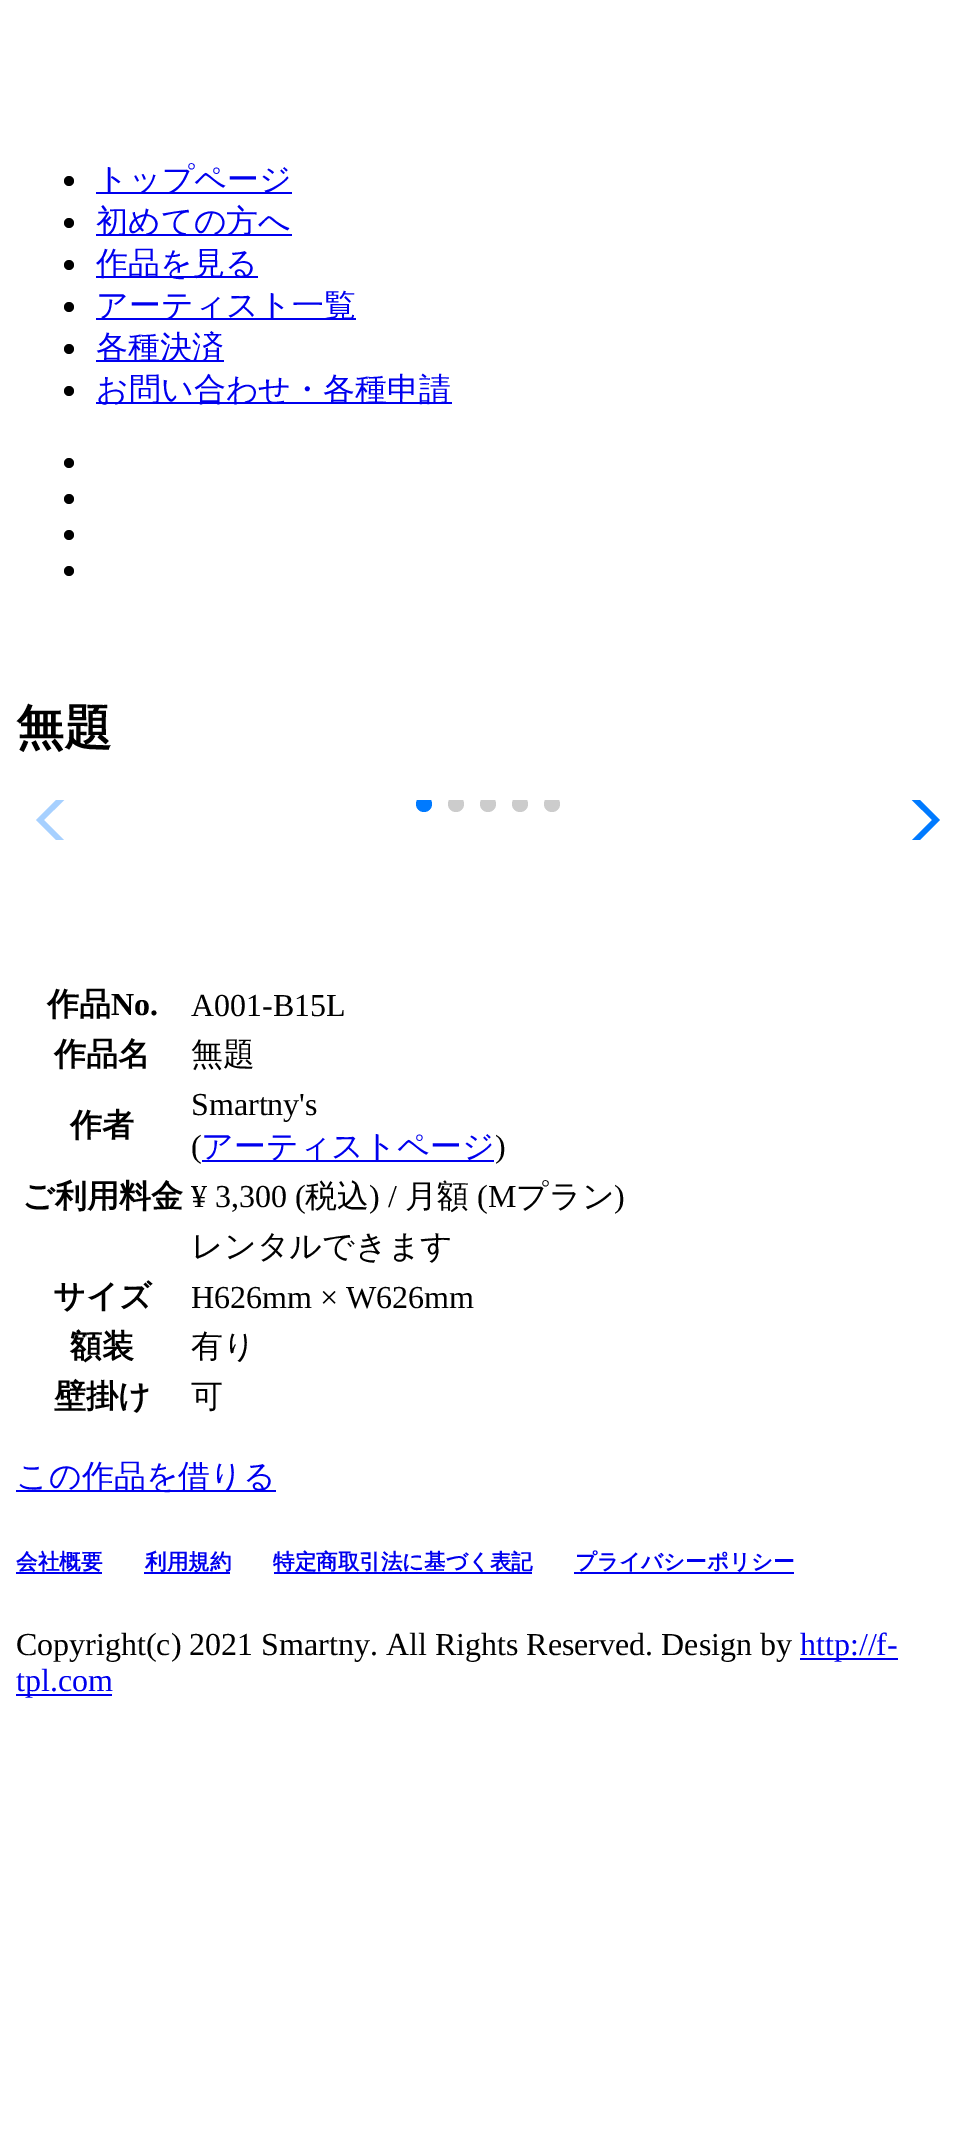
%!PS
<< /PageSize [976 2155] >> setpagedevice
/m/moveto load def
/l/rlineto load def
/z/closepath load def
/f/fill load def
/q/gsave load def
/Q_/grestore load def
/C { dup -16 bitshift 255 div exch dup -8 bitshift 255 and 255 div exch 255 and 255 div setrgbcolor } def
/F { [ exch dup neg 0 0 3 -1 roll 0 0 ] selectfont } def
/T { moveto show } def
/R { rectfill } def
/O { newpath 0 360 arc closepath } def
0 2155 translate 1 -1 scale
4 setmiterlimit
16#FFFFFF C
0 0 976 2155 R
16#000000 C
69 181 5 O f
16#0000EE C
96 192 196 2 R
/WenQuanYiZenHei-Medium 32 F
(トップページ) 96 190 T
16#000000 C
69 223 5 O f
16#0000EE C
96 234 196 2 R
(初めての方へ) 96 232 T
16#000000 C
69 265 5 O f
16#0000EE C
96 276 162 2 R
(作品を見る) 96 274 T
16#000000 C
69 307 5 O f
16#0000EE C
96 318 260 2 R
(アーティスト一覧) 96 316 T
16#000000 C
69 349 5 O f
16#0000EE C
96 360 128 2 R
(各種決済) 96 358 T
16#000000 C
69 391 5 O f
16#0000EE C
96 402 356 2 R
(お問い合わせ・各種申請) 96 400 T
16#000000 C
69 463 5 O f
69 499 5 O f
69 535 5 O f
69 571 5 O f
/WenQuanYiZenHei-Bold 48 F
(無題) 16 744 T
q
36 800 54 40 rectclip
16#A6D0FF C
36 820 m 44 -44 l 4 4 l -40 40 l 40 40 l -4 4 l z f
Q_
q
16 800 944 40 rectclip
16#007AFF C
424 804 8 O f
16#CCCCCC C
456 804 8 O f
488 804 8 O f
520 804 8 O f
552 804 8 O f
Q_
q
886 800 54 40 rectclip
16#007AFF C
940 820 m -44 44 l -4 -4 l 40 -40 l -40 -40 l 4 -4 l z f
Q_
/WenQuanYiZenHei-Bold 32 F
(作品) 47 1015 T
/LiberationSerif-Bold 32 F
(No.) 111 1015 T
/LiberationSerif-Regular 32 F
(A001-B15L) 191 1016 T
/WenQuanYiZenHei-Bold 32 F
(作品名) 54 1065 T
/WenQuanYiZenHei-Medium 32 F
(無題) 191 1065 T
/WenQuanYiZenHei-Bold 32 F
(作者) 70 1136 T
/LiberationSerif-Regular 32 F
(Smartny's) 191 1115 T
(\() 191 1157 T
16#0000EE C
202 1160 292 2 R
/WenQuanYiZenHei-Medium 32 F
(アーティストページ) 201 1157 T
/LiberationSerif-Regular 32 F
16#000000 C
(\)) 495 1157 T
/WenQuanYiZenHei-Bold 32 F
(ご利用料金) 22 1207 T
/LiberationSerif-Regular 32 F
(¥ 3,300 \() 191 1207 T
/WenQuanYiZenHei-Medium 32 F
(税込) 305 1207 T
/LiberationSerif-Regular 32 F
(\) /) 369 1207 T
/WenQuanYiZenHei-Medium 32 F
(月額) 405 1207 T
/LiberationSerif-Regular 32 F
(\(M) 477 1207 T
/WenQuanYiZenHei-Medium 32 F
(プラン) 516 1207 T
/LiberationSerif-Regular 32 F
(\)) 614 1207 T
/WenQuanYiZenHei-Medium 32 F
(レンタルできます) 191 1257 T
/WenQuanYiZenHei-Bold 32 F
(サイズ) 53 1307 T
/LiberationSerif-Regular 32 F
(H626mm × W626mm) 191 1308 T
/WenQuanYiZenHei-Bold 32 F
(額装) 70 1357 T
/WenQuanYiZenHei-Medium 32 F
(有り) 191 1357 T
/WenQuanYiZenHei-Bold 32 F
(壁掛け) 54 1407 T
/WenQuanYiZenHei-Medium 32 F
(可) 191 1407 T
16#0000EE C
16 1490 260 2 R
(この作品を借りる) 16 1487 T
/WenQuanYiZenHei-Bold 21.5 F
(会社概要) 16 1569 T
16 1572 86 2 R
144 1572 86 2 R
(利用規約) 145 1569 T
274 1572 258 2 R
(特定商取引法に基づく表記) 273 1569 T
(プライバシーポリシー) 575 1569 T
574 1572 220 2 R
/LiberationSerif-Regular 32 F
16#000000 C
(Copyright\(c\) 2021 Smartny. All Rights Reserved. Design by) 16 1655 T
16#0000EE C
800 1658 98 2 R
(http://f-) 800 1655 T
16 1694 96 2 R
(tpl.com) 16 1691 T
showpage
